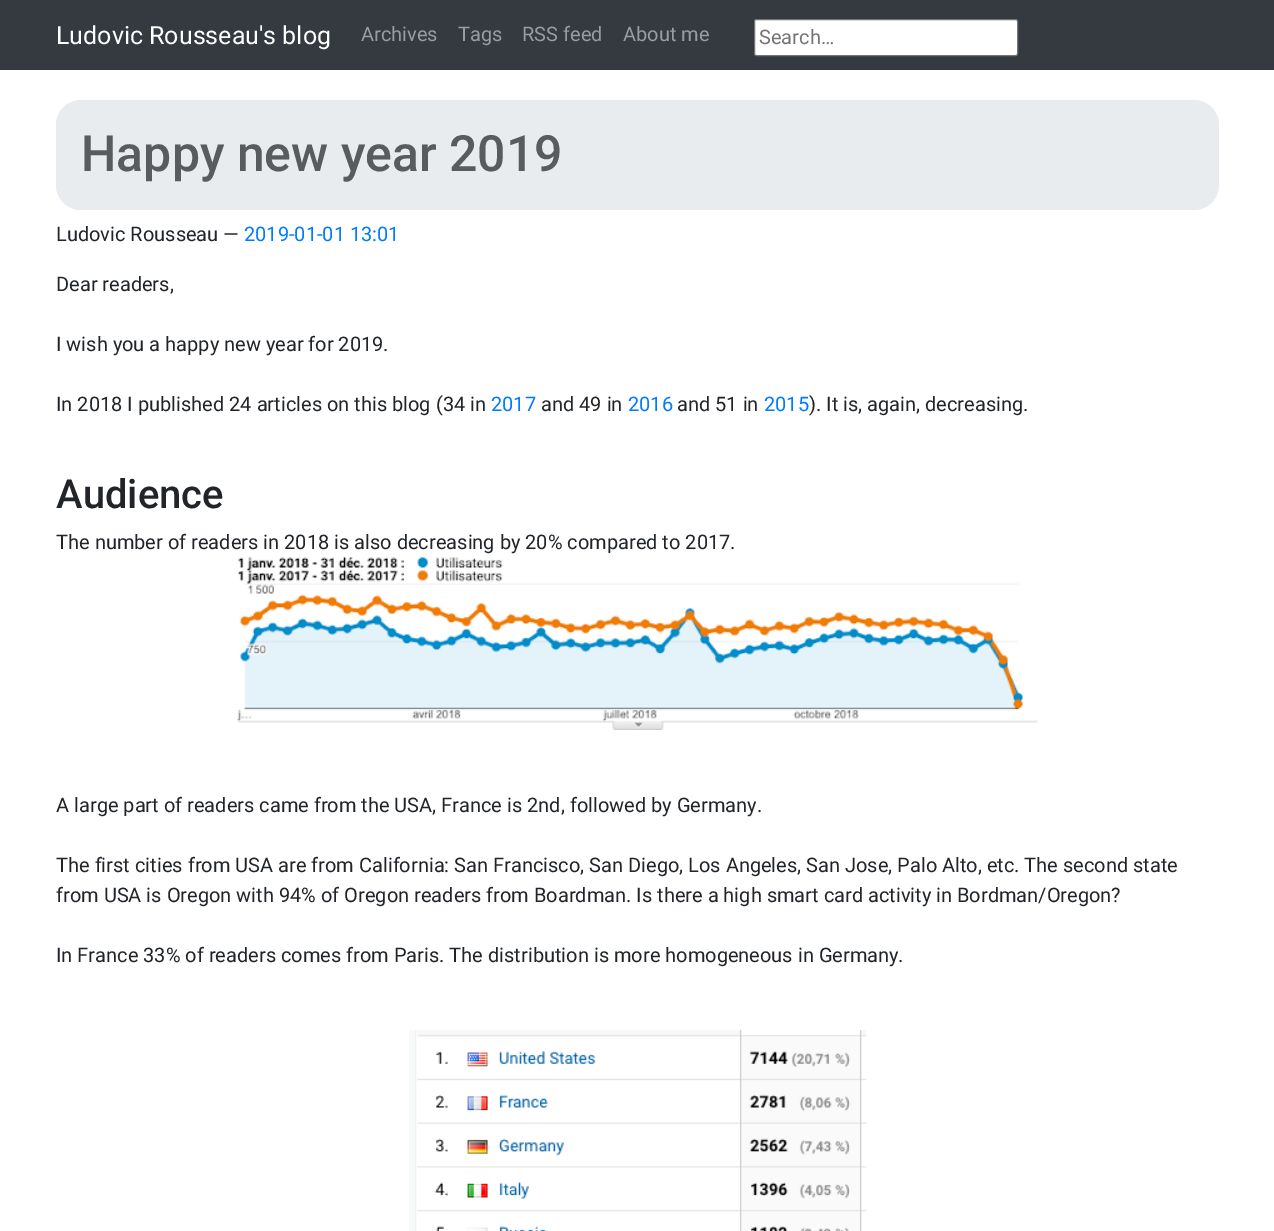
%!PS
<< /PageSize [1274 1231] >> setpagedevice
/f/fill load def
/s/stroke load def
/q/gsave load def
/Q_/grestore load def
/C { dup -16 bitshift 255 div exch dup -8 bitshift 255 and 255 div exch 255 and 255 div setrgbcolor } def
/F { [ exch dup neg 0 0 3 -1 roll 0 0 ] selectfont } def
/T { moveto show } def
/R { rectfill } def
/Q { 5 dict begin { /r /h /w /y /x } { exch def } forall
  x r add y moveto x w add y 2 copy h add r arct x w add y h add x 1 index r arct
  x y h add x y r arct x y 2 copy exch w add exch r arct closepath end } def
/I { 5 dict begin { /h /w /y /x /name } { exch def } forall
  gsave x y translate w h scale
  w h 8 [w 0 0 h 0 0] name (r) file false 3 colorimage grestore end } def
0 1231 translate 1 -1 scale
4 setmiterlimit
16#FFFFFF C
0 0 1274 1231 R
16#343A40 C
0 0 1274 70 R
/Roboto-Regular 25 F
16#FFFFFF C
(Ludovic Rousseau's blog) 56 44 T
/Roboto-Regular 20 F
16#9A9DA0 C
(Archives) 361 41 T
(Tags) 458 41 T
(RSS feed) 522 41 T
(About me) 623 41 T
16#FFFFFF C
754.5 19.5 263 36 2 Q q f Q_
16#767676 C
s
16#757575 C
(Search…) 759 44 T
16#E9ECEF C
56 100 1163 110 25 Q f
/Roboto-Medium 50 F
16#595C5F C
(Happy new year 2019) 81 171 T
/Roboto-Regular 20 F
16#212529 C
(Ludovic Rousseau —) 56 241 T
16#007BFF C
(2019-01-01 13:01) 244 241 T
16#212529 C
(Dear readers,) 56 291 T
(I wish you a happy new year for 2019.) 56 351 T
(In 2018 I published 24 articles on this blog \(34 in) 56 411 T
16#007BFF C
(2017) 491 411 T
16#212529 C
(and 49 in) 541 411 T
16#007BFF C
(2016) 628 411 T
16#212529 C
(and 51 in) 677 411 T
16#007BFF C
(2015) 764 411 T
16#212529 C
(\). It is, again, decreasing.) 809 411 T
/Roboto-Medium 40 F
(Audience) 56 508 T
/Roboto-Regular 20 F
(The number of readers in 2018 is also decreasing by 20% compared to 2017.) 56 549 T
(1.rgb) 237 557 801 173 I
(A large part of readers came from the USA, France is 2nd, followed by Germany.) 56 812 T
(The first cities from USA are from California: San Francisco, San Diego, Los Angeles, San Jose, Palo Alto, etc. The second state) 56 872 T
(from USA is Oregon with 94% of Oregon readers from Boardman. Is there a high smart card activity in Bordman/Oregon?) 56 902 T
(In France 33% of readers comes from Paris. The distribution is more homogeneous in Germany.) 56 962 T
(2.rgb) 409 1030 458 201 I
showpage
